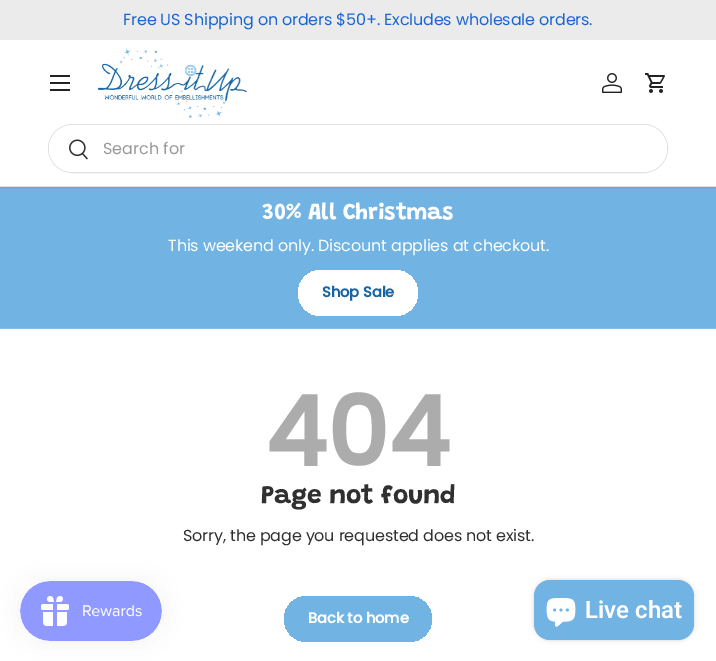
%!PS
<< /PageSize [716 661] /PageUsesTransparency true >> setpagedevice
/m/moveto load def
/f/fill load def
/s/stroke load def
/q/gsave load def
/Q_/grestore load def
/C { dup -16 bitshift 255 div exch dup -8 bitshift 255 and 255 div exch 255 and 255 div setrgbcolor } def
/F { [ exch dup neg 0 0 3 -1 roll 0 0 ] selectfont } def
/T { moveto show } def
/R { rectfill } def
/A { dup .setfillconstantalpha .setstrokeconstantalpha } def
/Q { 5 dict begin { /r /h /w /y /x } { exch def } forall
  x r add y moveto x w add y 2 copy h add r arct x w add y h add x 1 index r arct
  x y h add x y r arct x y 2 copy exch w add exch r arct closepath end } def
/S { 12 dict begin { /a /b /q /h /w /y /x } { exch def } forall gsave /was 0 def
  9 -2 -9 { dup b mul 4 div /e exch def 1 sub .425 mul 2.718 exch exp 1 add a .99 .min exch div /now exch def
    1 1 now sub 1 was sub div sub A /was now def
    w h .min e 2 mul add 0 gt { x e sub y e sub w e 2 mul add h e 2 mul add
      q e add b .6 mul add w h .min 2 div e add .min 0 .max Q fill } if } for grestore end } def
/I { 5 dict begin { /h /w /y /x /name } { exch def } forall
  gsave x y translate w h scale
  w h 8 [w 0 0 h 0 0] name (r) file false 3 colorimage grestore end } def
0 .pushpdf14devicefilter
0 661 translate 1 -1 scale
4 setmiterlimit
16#FFFFFF C
0 0 716 661 R
16#71B3E2 C
0 187 716 141 R
q
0 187 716 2 rectclip
16#000000 C
-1 39 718 149 0 1.5 .08 S
Q_
16#EBEBEB C
0 0 716 40 R
/Poppins-Regular 16 F
16#1A66D2 C
123 25 m -.15 0 (Free US Shipping on orders $50+. Excludes wholesale orders.) ashow
16#222222 C
50 75 20 2 R
50 89 20 2 R
50 82 20 2 R
(1.rgb) 97 48 150 70 I
(2.rgb) 602 73 20 20 I
(3.rgb) 645 73 20 20 I
16#E0E0E0 C
48.5 124.5 619 48 24 Q s
16#FFFFFF C
49 125 618 47 23.5 Q f
(4.rgb) 69 139 19 21 I
16#989898 C
(Search for) 103 154 T
16#DEDEDE C
0 186 716 1 R
16#86BEE6 C
0 328 716 1 R
/Grandstander-Bold 23 F
16#FFFFFF C
262 219 m -.25 0 (30% All Christmas) ashow
/Poppins-Regular 16 F
168 251 m -.15 0 (This weekend only. Discount applies at checkout.) ashow
q 298 270 120 46 23 Q clip newpath
<< /ShadingType 2 /ColorSpace /DeviceRGB /Coords [63 249 413 337] /Extend [true true] /Function << /FunctionType 3 /Domain [0 1] /Functions [<< /FunctionType 2 /Domain [0 1] /C0 [.906 .937 .961] /C1 [.906 .937 .961] /N 1 >> << /FunctionType 2 /Domain [0 1] /C0 [1 1 1] /C1 [1 1 1] /N 1 >>] /Bounds [.6] /Encode [0 1 0 1] >> >> shfill Q_
/Poppins-Bold 14.75 F
16#1865A2 C
322 297 m -.15 0 (Shop Sale) ashow
16#000000 C
20 581 142 60 30 12.5 .05 S
(5.rgb) 20 581 142 60 I
/Poppins-Bold 96 F
16#ACACAC C
265 466 m -.15 0 (404) ashow
/Grandstander-Bold 26.25 F
16#303030 C
261 503 m -.25 0 (Page not found) ashow
/Poppins-Regular 16 F
183 541 m -.15 0 (Sorry, the page you requested does not exist.) ashow
q 284 596 148 46 23 Q clip newpath
<< /ShadingType 2 /ColorSpace /DeviceRGB /Coords [-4.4 566 424 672] /Extend [true true] /Function << /FunctionType 3 /Domain [0 1] /Functions [<< /FunctionType 2 /Domain [0 1] /C0 [.576 .773 .914] /C1 [.576 .773 .914] /N 1 >> << /FunctionType 2 /Domain [0 1] /C0 [.443 .702 .886] /C1 [.443 .702 .886] /N 1 >>] /Bounds [.6] /Encode [0 1 0 1] >> >> shfill Q_
/Poppins-Bold 14.75 F
16#FFFFFF C
308 623 m -.15 0 (Back to home) ashow
16#000000 C
534 580 160 60 16 2.5 .15 S
16#71B3E2 C
534 580 160 60 16 Q f
(6.rgb) 546 598 30 29 I
/Roboto-SemiBold 24 F
16#FFFFFF C
(Live chat) 585 618 T
.poppdf14devicefilter showpage
